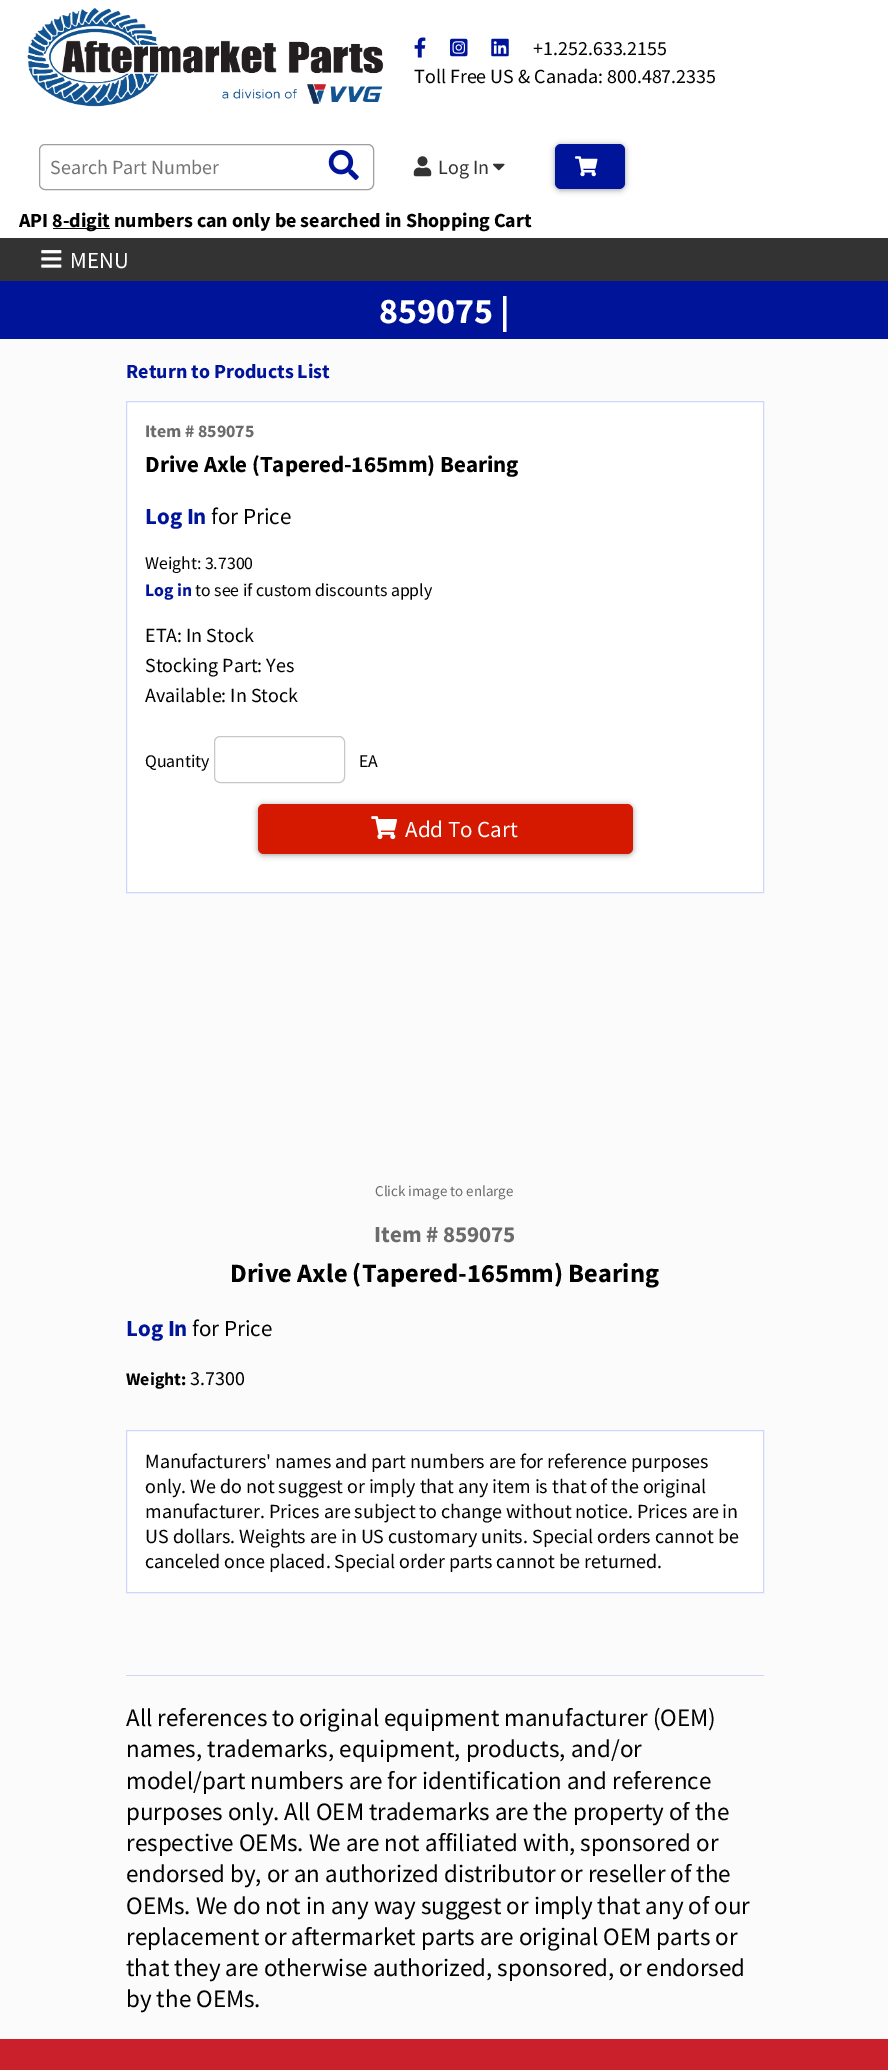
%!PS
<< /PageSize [888 2070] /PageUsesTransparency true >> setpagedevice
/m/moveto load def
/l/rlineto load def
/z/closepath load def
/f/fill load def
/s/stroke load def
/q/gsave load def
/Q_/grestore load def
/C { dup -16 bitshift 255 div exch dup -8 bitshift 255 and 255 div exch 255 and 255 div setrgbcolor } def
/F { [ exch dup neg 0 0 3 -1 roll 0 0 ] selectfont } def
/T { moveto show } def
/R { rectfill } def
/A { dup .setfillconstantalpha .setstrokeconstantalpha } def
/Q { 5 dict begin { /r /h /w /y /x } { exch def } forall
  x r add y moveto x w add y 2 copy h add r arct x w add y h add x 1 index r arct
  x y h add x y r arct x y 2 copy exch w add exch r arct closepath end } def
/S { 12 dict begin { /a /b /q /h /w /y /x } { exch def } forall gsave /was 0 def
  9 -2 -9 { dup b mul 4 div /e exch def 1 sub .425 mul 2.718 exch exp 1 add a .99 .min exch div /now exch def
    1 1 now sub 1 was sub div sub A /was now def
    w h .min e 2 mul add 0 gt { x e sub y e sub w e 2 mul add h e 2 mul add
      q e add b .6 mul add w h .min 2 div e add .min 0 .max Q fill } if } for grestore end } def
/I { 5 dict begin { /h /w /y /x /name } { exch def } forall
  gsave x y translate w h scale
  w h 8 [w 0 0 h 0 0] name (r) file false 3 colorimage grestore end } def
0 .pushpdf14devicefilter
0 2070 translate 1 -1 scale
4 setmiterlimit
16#FBFBFB C
0 0 888 2070 R
16#FFFFFF C
0 0 888 238 R
(1.rgb) 27 8 357 99 I
(2.rgb) 414 37 12 21 I
(3.rgb) 450 38 18 19 I
(4.rgb) 491 38 18 19 I
/SourceSansPro-Regular 20 F
16#000000 C
(+1.252.633.2155) 533 55 T
(Toll Free US & Canada: 800.487.2335) 414 83 T
16#9E9E9E C
39.5 144.5 334 45 5.5 Q s
16#757575 C
(Search Part Number) 50 174 T
(5.rgb) 328 150 31 30 I
(6.rgb) 413 156 19 21 I
16#333333 C
(Log In) 438 174 T
(7.rgb) 493 163 12 8 I
16#818181 C
555 145 70 45 6 3 .8 S
16#001499 C
555 144 70 45 6 Q f
(8.rgb) 575 156 23 21 I
/SourceSansPro-Bold 20 F
16#000000 C
(API) 19 227 T
53 228 57 1 R
(8-digit numbers can only be searched in Shopping Cart) 52 227 T
16#333333 C
0 238 888 43 R
(9.rgb) 41 250 21 18 I
/SourceSansPro-Regular 23 F
16#FFFFFF C
(MENU) 70 268 T
16#001499 C
0 281 888 58 R
/SourceSansPro-Bold 36 F
16#FFFFFF C
(859075 |) 379 323 T
/SourceSansPro-Bold 20 F
16#001499 C
(Return to Products List) 126 378 T
16#FFFFFF C
126.5 401.5 m 637 0 l 0 491 l -637 0 l z q f Q_
16#D0D5FB C
s
/SourceSansPro-Bold 17.75 F
16#6B6B6B C
(Item # 859075) 145 437 T
/SourceSansPro-Bold 23 F
16#000000 C
(Drive Axle \(Tapered-165mm\) Bearing) 145 472 T
16#001499 C
(Log In) 145 524 T
/SourceSansPro-Regular 23 F
16#000000 C
(for Price) 211 524 T
/SourceSansPro-Regular 17.75 F
(Weight: 3.7300) 145 569 T
/SourceSansPro-Bold 17.75 F
16#001499 C
(Log in) 145 596 T
/SourceSansPro-Regular 17.75 F
16#000000 C
(to see if custom discounts apply) 195 596 T
/SourceSansPro-Regular 20 F
(ETA: In Stock) 145 642 T
(Stocking Part: Yes) 145 672 T
(Available: In Stock) 145 702 T
/SourceSansPro-Regular 17.75 F
(Quantity) 145 767 T
16#C8C8C8 C
214.5 736.5 130 46 5.5 Q s
16#000000 C
(EA) 359 767 T
16#818181 C
258 805 375 50 6 3 .8 S
16#D41900 C
258 804 375 50 6 Q f
(10.rgb) 371 816 27 24 I
/SourceSansPro-Regular 23 F
16#FFFFFF C
(Add To Cart) 405 837 T
/SourceSansPro-Regular 15 F
16#6B6B6B C
(Click image to enlarge) 375 1196 T
/SourceSansPro-Bold 23 F
(Item # 859075) 374 1242 T
/SourceSansPro-Bold 26.4 F
16#000000 C
(Drive Axle \(Tapered-165mm\) Bearing) 230 1282 T
/SourceSansPro-Bold 23 F
16#001499 C
(Log In) 126 1336 T
/SourceSansPro-Regular 23 F
16#000000 C
(for Price) 192 1336 T
/SourceSansPro-Bold 17.75 F
(Weight:) 126 1385 T
/SourceSansPro-Regular 20 F
(3.7300) 190 1385 T
16#FFFFFF C
126.5 1430.5 m 637 0 l 0 162 l -637 0 l z q f Q_
16#D0D5FB C
s
16#000000 C
(Manufacturers' names and part numbers are for reference purposes) 145 1468 T
(only. We do not suggest or imply that any item is that of the original) 145 1493 T
(manufacturer. Prices are subject to change without notice. Prices are in) 145 1518 T
(US dollars. Weights are in US customary units. Special orders cannot be) 145 1543 T
(canceled once placed. Special order parts cannot be returned.) 145 1568 T
16#D0D5FB C
126 1675 638 1 R
/SourceSansPro-Regular 25 F
16#000000 C
(All references to original equipment manufacturer \(OEM\)) 126 1726 T
(names, trademarks, equipment, products, and/or) 126 1757 T
(model/part numbers are for identification and reference) 126 1789 T
(purposes only. All OEM trademarks are the property of the) 126 1820 T
(respective OEMs. We are not affiliated with, sponsored or) 126 1851 T
(endorsed by, or an authorized distributor or reseller of the) 126 1882 T
(OEMs. We do not in any way suggest or imply that any of our) 126 1914 T
(replacement or aftermarket parts are original OEM parts or) 126 1945 T
(that they are otherwise authorized, sponsored, or endorsed) 126 1976 T
(by the OEMs.) 126 2007 T
16#C9202B C
0 2039 888 31 R
.poppdf14devicefilter showpage
